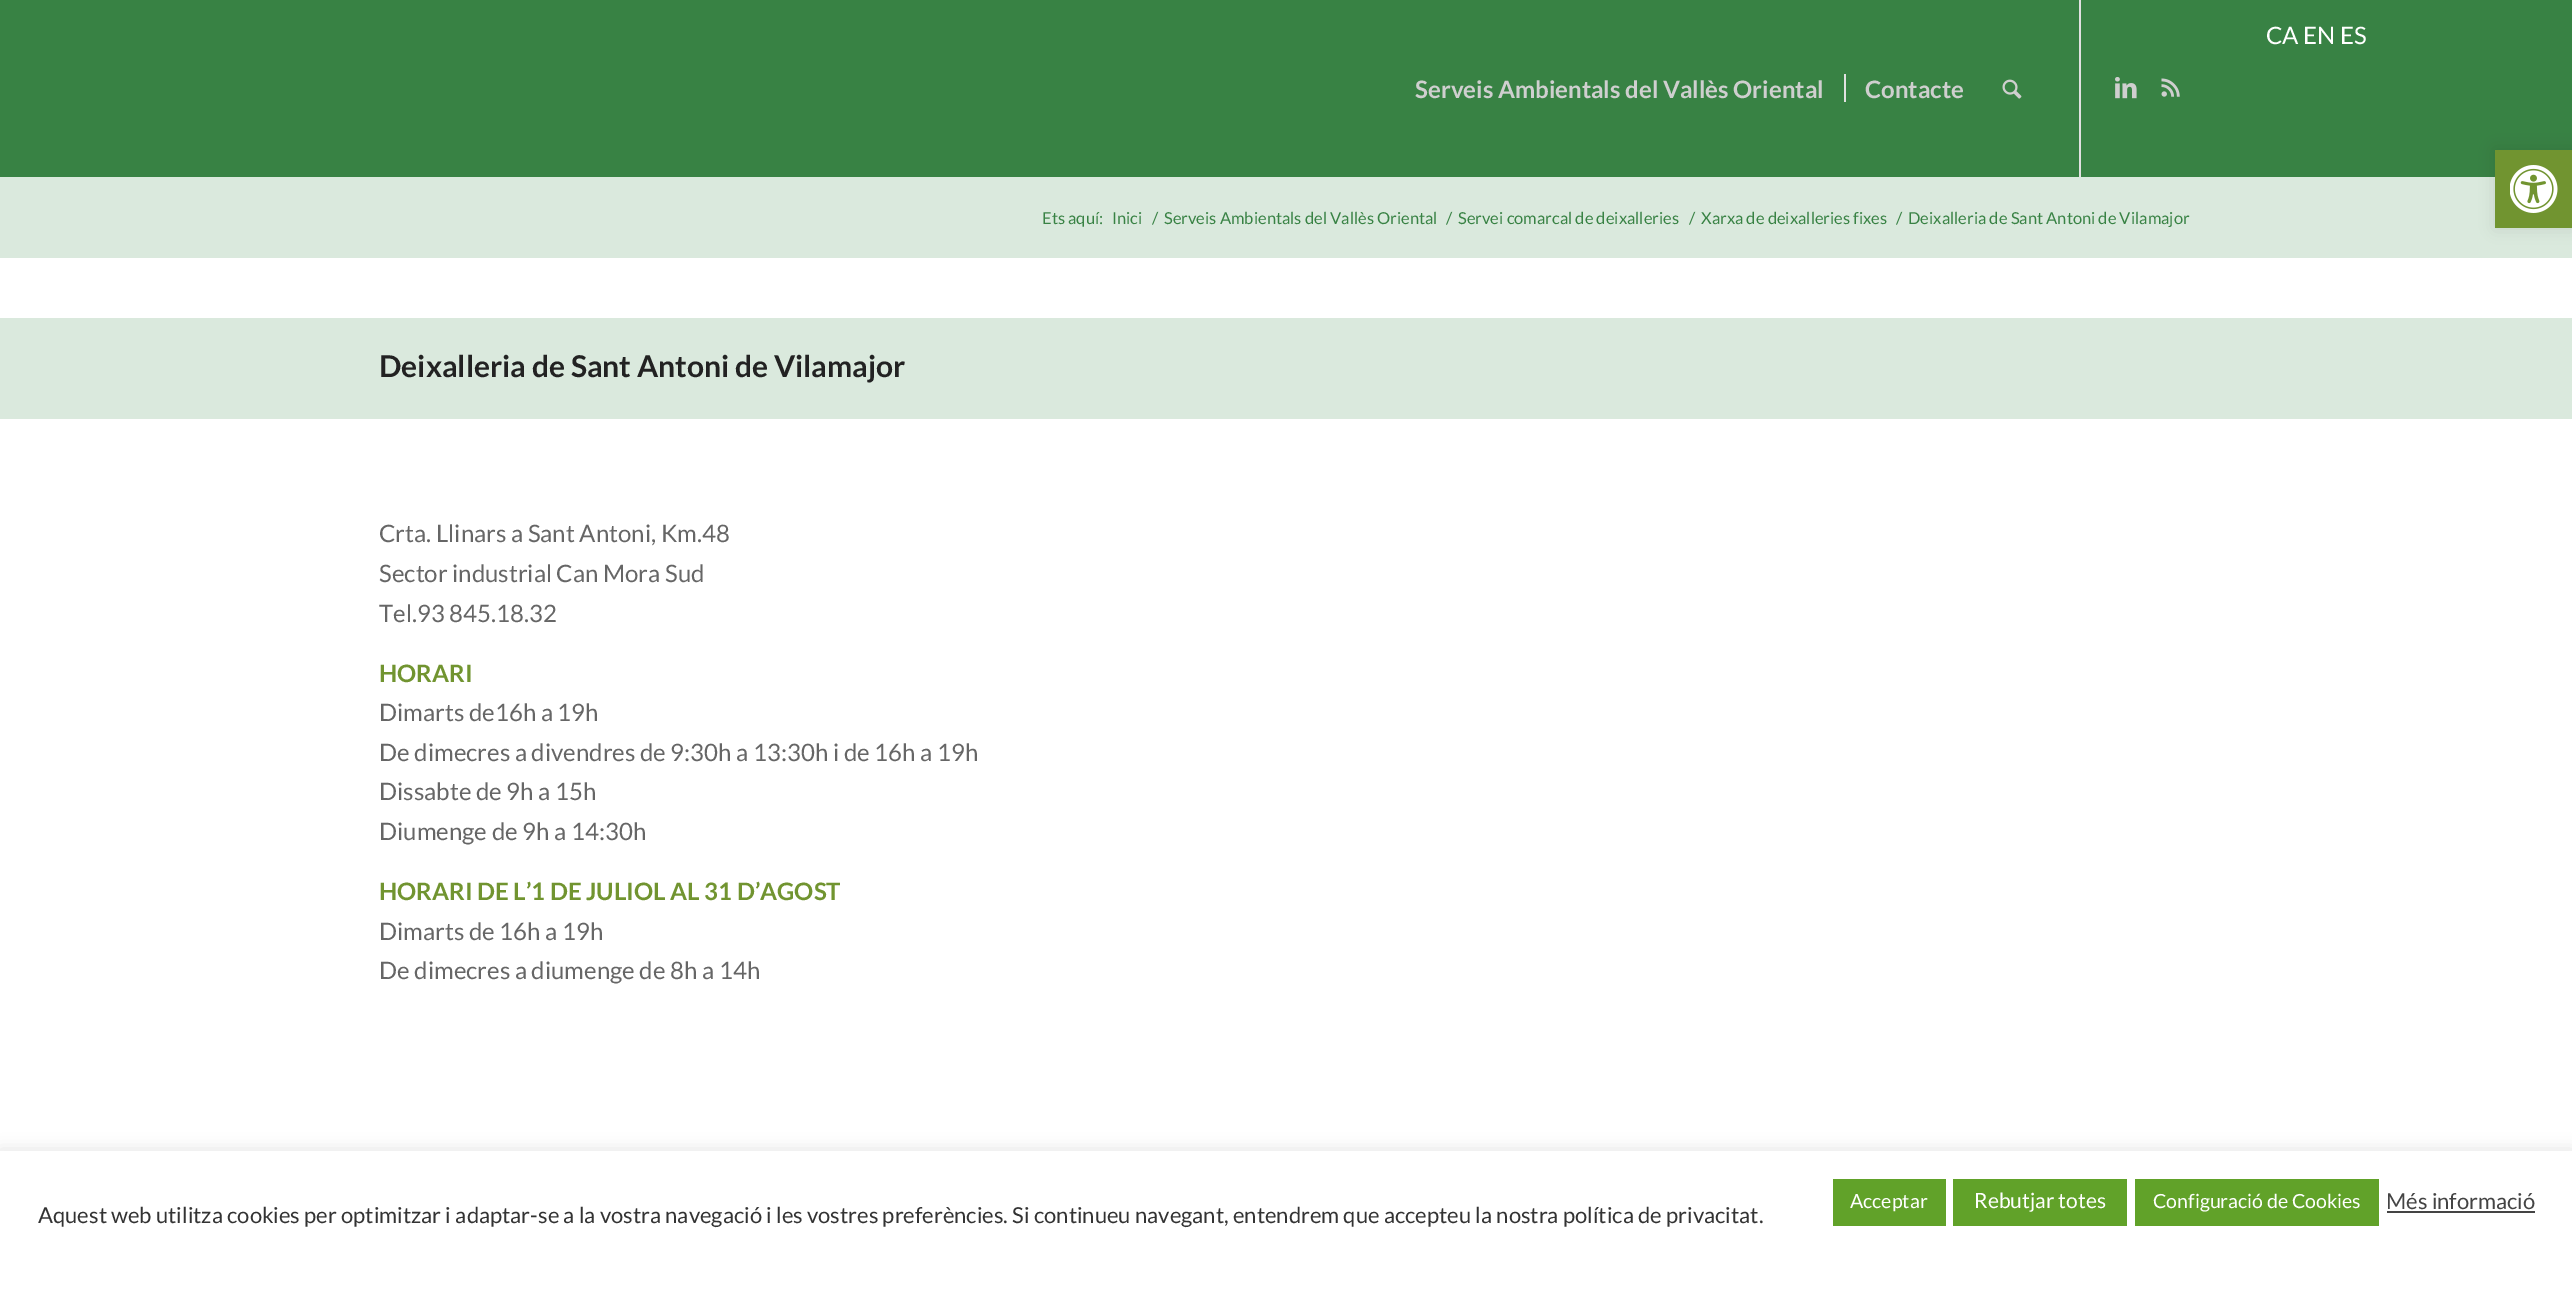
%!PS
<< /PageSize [2572 1296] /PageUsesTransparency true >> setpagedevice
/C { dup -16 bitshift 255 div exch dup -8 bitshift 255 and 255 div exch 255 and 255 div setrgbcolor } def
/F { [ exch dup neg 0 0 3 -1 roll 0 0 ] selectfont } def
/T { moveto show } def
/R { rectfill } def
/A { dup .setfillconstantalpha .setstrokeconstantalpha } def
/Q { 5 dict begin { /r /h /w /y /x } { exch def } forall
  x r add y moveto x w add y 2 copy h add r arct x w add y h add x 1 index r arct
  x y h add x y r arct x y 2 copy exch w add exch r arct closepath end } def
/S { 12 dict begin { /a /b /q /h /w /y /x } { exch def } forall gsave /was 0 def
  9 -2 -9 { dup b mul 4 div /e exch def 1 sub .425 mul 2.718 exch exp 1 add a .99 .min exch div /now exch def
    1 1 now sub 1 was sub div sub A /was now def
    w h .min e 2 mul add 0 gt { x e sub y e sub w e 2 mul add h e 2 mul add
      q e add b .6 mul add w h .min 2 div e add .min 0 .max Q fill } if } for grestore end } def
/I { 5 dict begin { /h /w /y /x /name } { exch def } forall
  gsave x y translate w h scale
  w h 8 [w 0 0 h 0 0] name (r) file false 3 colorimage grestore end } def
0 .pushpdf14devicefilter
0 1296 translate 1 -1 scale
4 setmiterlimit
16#DAE9DD C
0 0 2572 1296 R
16#388244 C
0 0 2572 177 R
/Lato-Regular 24 F
16#FFFFFF C
(CA EN ES) 2266 44 T
16#E1E1E1 C
2079 0 2 177 R
/Lato-Bold 24 F
16#CFCFCF C
(Serveis Ambientals del Vallès Oriental) 1415 98 T
(Contacte) 1865 98 T
16#E1E1E1 C
1844 74 2 28 R
(1.rgb) 2002 79 20 20 I
(2.rgb) 2115 77 22 22 I
(3.rgb) 2161 78 19 19 I
/Lato-Regular 16.5 F
16#388244 C
(Ets aquí:) 1042 224 T
(Inici) 1112 224 T
(/) 1152 224 T
(Serveis Ambientals del Vallès Oriental) 1164 224 T
(/) 1446 224 T
(Servei comarcal de deixalleries) 1458 224 T
(/) 1689 224 T
(Xarxa de deixalleries fixes) 1701 224 T
(/) 1896 224 T
(Deixalleria de Sant Antoni de Vilamajor) 1908 224 T
16#FFFFFF C
0 258 2572 60 R
/Lato-Bold 30 F
16#222222 C
(Deixalleria de Sant Antoni de Vilamajor) 379 377 T
16#FFFFFF C
0 419 2572 732 R
/Lato-Regular 24 F
16#666666 C
(Crta. Llinars a Sant Antoni, Km.48) 379 542 T
(Sector industrial Can Mora Sud) 379 582 T
(Tel.93 845.18.32) 379 622 T
/Lato-Bold 24 F
16#719430 C
(HORARI) 379 682 T
/Lato-Regular 24 F
16#666666 C
(Dimarts de16h a 19h) 379 721 T
(De dimecres a divendres de 9:30h a 13:30h i de 16h a 19h) 379 761 T
(Dissabte de 9h a 15h) 379 800 T
(Diumenge de 9h a 14:30h) 379 840 T
/Lato-Bold 24 F
16#719430 C
(HORARI DE L’1 DE JULIOL AL 31 D’AGOST) 379 900 T
/Lato-Regular 24 F
16#666666 C
(Dimarts de 16h a 19h) 379 940 T
(De dimecres a diumenge de 8h a 14h) 379 979 T
16#000000 C
2495 150 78 78 0 7.5 .1 S
16#719430 C
2495 150 77 78 R
(4.rgb) 2510 165 48 48 I
16#ACABAB C
0 1149 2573 146 0 7.5 .3 S
16#FFFFFF C
0 1151 2572 145 R
16#61A229 C
1833 1179 113 47 R
/Lato-Regular 19.5 F
16#FFFFFF C
(Acceptar) 1850 1208 T
16#61A229 C
1953 1179 174 47 R
/Lato-Regular 21 F
16#FFFFFF C
(Rebutjar totes) 1974 1208 T
16#61A229 C
2135 1179 244 47 R
/Lato-Regular 19.5 F
16#FFFFFF C
(Configuració de Cookies) 2153 1208 T
/Lato-Regular 22 F
16#444444 C
(Més informació) 2386 1209 T
2387 1211 148 2 R
16#333333 C
(Aquest web utilitza cookies per optimitzar i adaptar-se a la vostra navegació i les vostres preferències. Si continueu navegant, entendrem que accepteu la nostra política de privacitat.) 38 1223 T
.poppdf14devicefilter showpage
